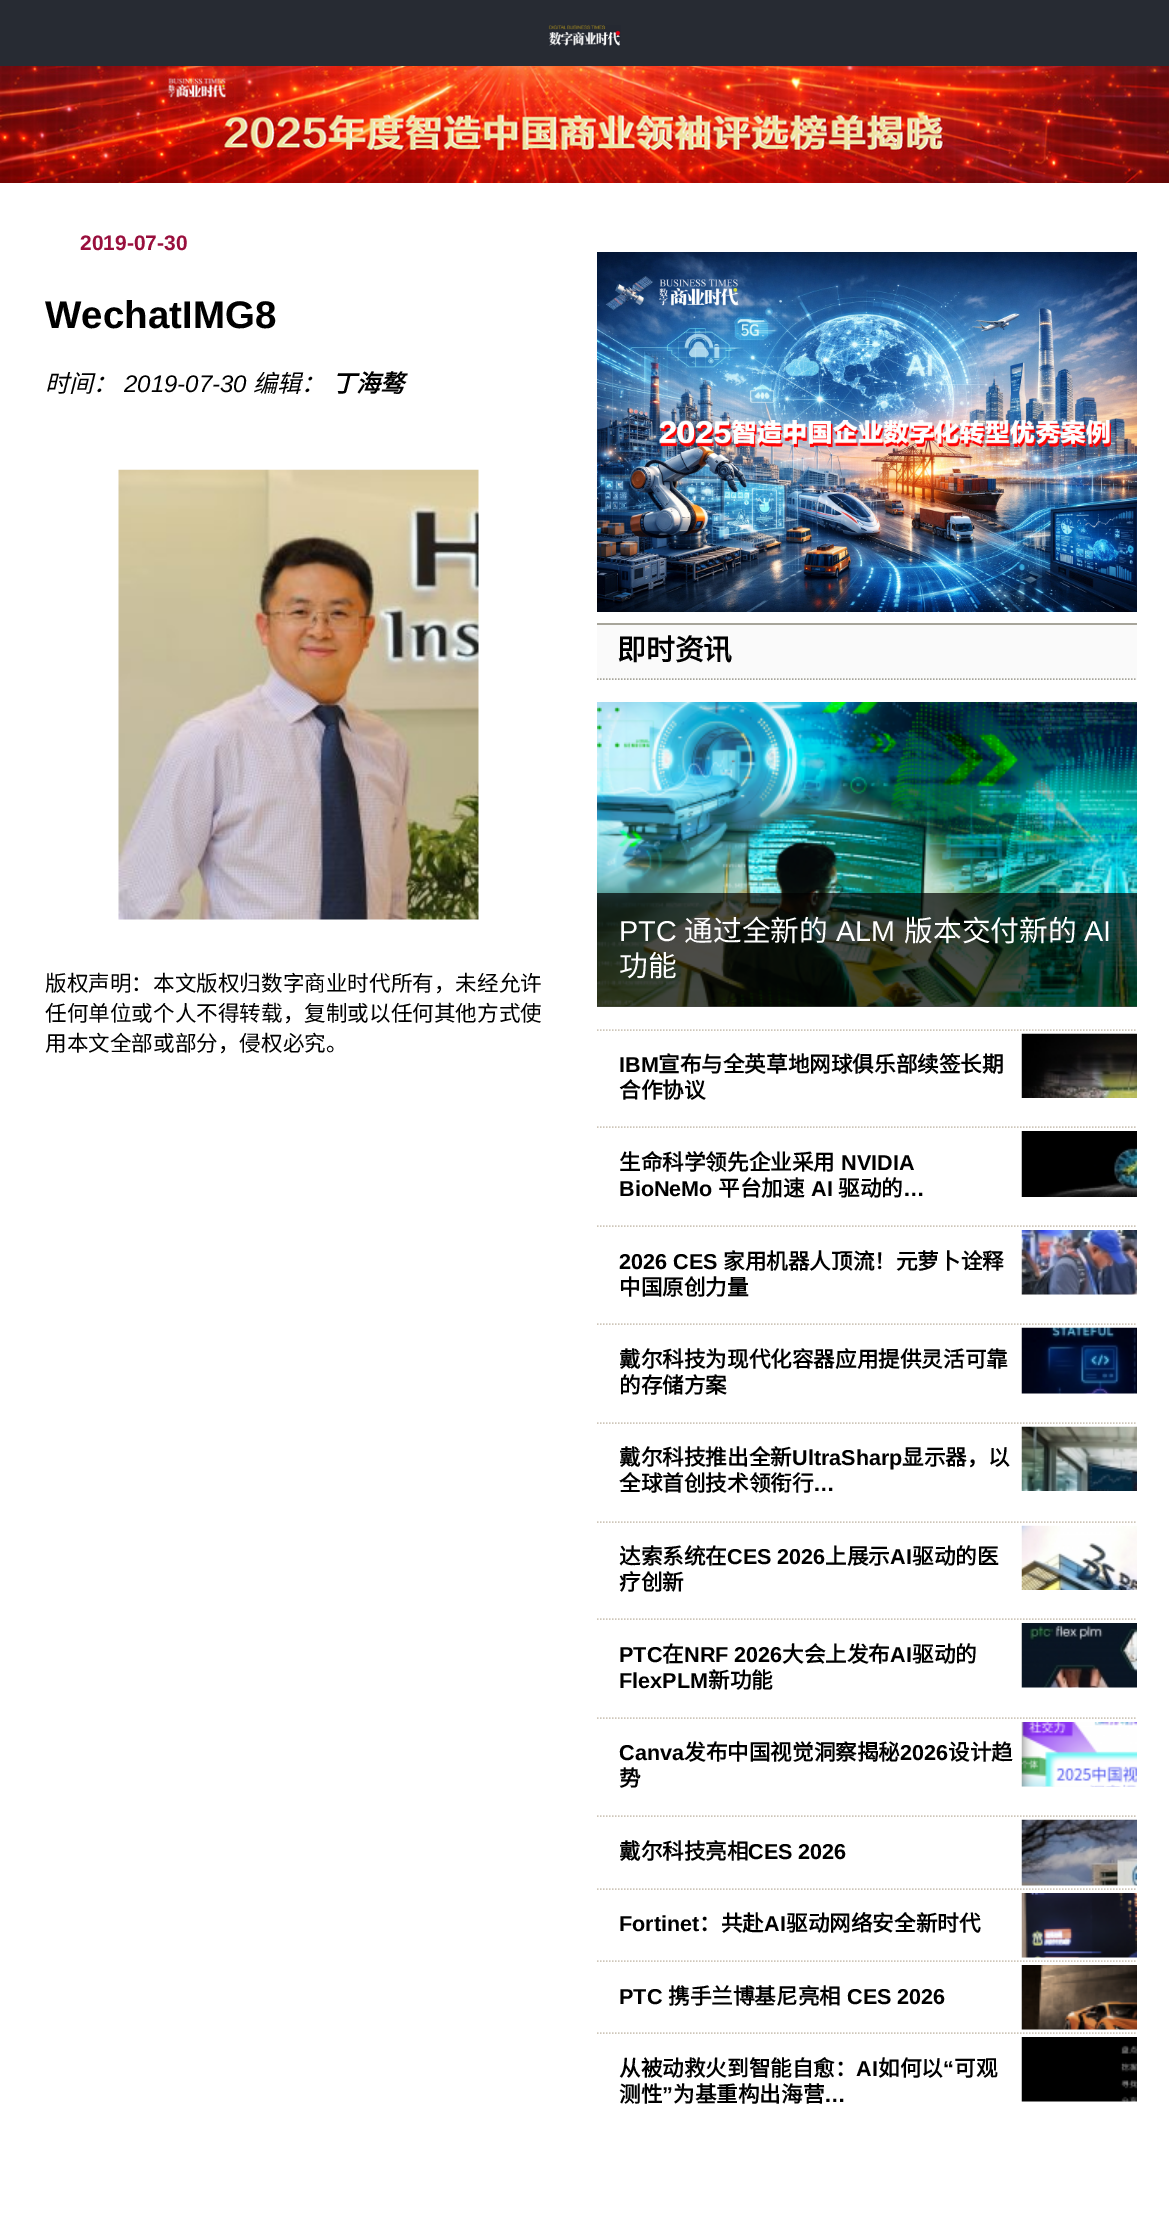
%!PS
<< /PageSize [1169 2215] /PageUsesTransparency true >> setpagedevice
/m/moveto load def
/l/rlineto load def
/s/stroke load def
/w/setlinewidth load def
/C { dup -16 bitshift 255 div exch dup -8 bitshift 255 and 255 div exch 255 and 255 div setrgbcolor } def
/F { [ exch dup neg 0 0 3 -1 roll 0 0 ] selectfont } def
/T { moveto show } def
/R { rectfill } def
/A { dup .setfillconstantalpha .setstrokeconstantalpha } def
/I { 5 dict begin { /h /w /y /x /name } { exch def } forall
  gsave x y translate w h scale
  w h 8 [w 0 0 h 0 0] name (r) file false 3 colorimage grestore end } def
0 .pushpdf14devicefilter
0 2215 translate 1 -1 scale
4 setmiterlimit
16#FFFFFF C
0 0 1169 2215 R
16#272B33 C
0 0 1169 66 R
(1.rgb) 548 25 73 21 I
(2.rgb) 0 66 1169 117 I
/LiberationSans-Bold 21 F
16#990F3D C
(2019-07-30) 80 250 T
/LiberationSans-Bold 38.5 F
16#000000 C
(WechatIMG8) 45 328 T
/NotoSansCJKSC-Italic 24 F
(时间：) 45 392 T
/LiberationSans-Italic 24 F
(2019-07-30) 124 392 T
/NotoSansCJKSC-Italic 24 F
(编辑：) 253 392 T
/NotoSansCJKSC-BoldItalic 24 F
(丁海骜) 332 392 T
(3.rgb) 118 469 361 451 I
/NotoSansCJKSC-Regular 21.6 F
(版权声明：本文版权归数字商业时代所有，未经允许) 45 991 T
(任何单位或个人不得转载，复制或以任何其他方式使) 45 1021 T
(用本文全部或部分，侵权必究。) 45 1051 T
(4.rgb) 597 252 540 360 I
16#FAFAFA C
597 625 540 55 R
16#A7A59B C
597 623 540 2 R
1.5 w
[1.5 1.5] 0 setdash
597 679 m 540 0 l s
/NotoSansCJKSC-Bold 28.75 F
16#000000 C
(即时资讯) 617 660 T
16#FCFCFC C
597 1006 540 1 R
(5.rgb) 597 702 540 305 I
0.7 A
16#000000 C
597 893 540 114 R
/LiberationSans-Regular 28.75 F
1 A
16#FFFFFF C
(PTC) 619 941 T
/NotoSansCJKSC-Regular 28.75 F
(通过全新的) 684 941 T
/LiberationSans-Regular 28.75 F
(ALM) 836 941 T
/NotoSansCJKSC-Regular 28.75 F
(版本交付新的) 904 941 T
/LiberationSans-Regular 28.75 F
(AI) 1084 941 T
/NotoSansCJKSC-Regular 28.75 F
(功能) 619 976 T
16#CEC6B9 C
597 1030 m 540 0 l s
/LiberationSans-Bold 21.6 F
16#000000 C
(IBM) 619 1072 T
/NotoSansCJKSC-Bold 21.6 F
(宣布与全英草地网球俱乐部续签长期) 658 1072 T
(合作协议) 619 1098 T
(6.rgb) 1021 1033 116 65 I
16#CEC6B9 C
597 1127 m 540 0 l s
16#000000 C
(生命科学领先企业采用) 619 1170 T
/LiberationSans-Bold 21.6 F
(NVIDIA) 841 1170 T
(BioNeMo) 619 1196 T
/NotoSansCJKSC-Bold 21.6 F
(平台加速) 718 1196 T
/LiberationSans-Bold 21.6 F
(AI) 811 1196 T
/NotoSansCJKSC-Bold 21.6 F
(驱动的) 838 1196 T
/LiberationSans-Bold 21.6 F
(…) 903 1196 T
(7.rgb) 1021 1131 116 66 I
16#CEC6B9 C
597 1226 m 540 0 l s
16#000000 C
(2026 CES) 619 1269 T
/NotoSansCJKSC-Bold 21.6 F
(家用机器人顶流！元萝卜诠释) 723 1269 T
(中国原创力量) 619 1295 T
16#FCFCFC C
1022 1294 115 1 R
(8.rgb) 1021 1230 116 65 I
16#CEC6B9 C
597 1324 m 540 0 l s
16#000000 C
(戴尔科技为现代化容器应用提供灵活可靠) 619 1367 T
(的存储方案) 619 1393 T
16#FCFCFC C
1022 1393 115 1 R
(9.rgb) 1021 1327 116 67 I
16#CEC6B9 C
597 1423 m 540 0 l s
16#000000 C
(戴尔科技推出全新) 619 1465 T
/LiberationSans-Bold 21.6 F
(UltraSharp) 792 1465 T
/NotoSansCJKSC-Bold 21.6 F
(显示器，以) 902 1465 T
(全球首创技术领衔行) 619 1491 T
/LiberationSans-Bold 21.6 F
(…) 813 1491 T
(10.rgb) 1021 1426 116 65 I
16#CEC6B9 C
597 1522 m 540 0 l s
/NotoSansCJKSC-Bold 21.6 F
16#000000 C
(达索系统在) 619 1564 T
/LiberationSans-Bold 21.6 F
(CES 2026) 727 1564 T
/NotoSansCJKSC-Bold 21.6 F
(上展示) 825 1564 T
/LiberationSans-Bold 21.6 F
(AI) 890 1564 T
/NotoSansCJKSC-Bold 21.6 F
(驱动的医) 912 1564 T
(疗创新) 619 1590 T
(11.rgb) 1021 1525 116 65 I
16#CEC6B9 C
597 1619 m 540 0 l s
/LiberationSans-Bold 21.6 F
16#000000 C
(PTC) 619 1662 T
/NotoSansCJKSC-Bold 21.6 F
(在) 662 1662 T
/LiberationSans-Bold 21.6 F
(NRF 2026) 684 1662 T
/NotoSansCJKSC-Bold 21.6 F
(大会上发布) 782 1662 T
/LiberationSans-Bold 21.6 F
(AI) 890 1662 T
/NotoSansCJKSC-Bold 21.6 F
(驱动的) 912 1662 T
/LiberationSans-Bold 21.6 F
(FlexPLM) 619 1688 T
/NotoSansCJKSC-Bold 21.6 F
(新功能) 708 1688 T
16#FCFCFC C
1022 1687 115 1 R
(12.rgb) 1021 1623 116 65 I
16#CEC6B9 C
597 1718 m 540 0 l s
/LiberationSans-Bold 21.6 F
16#000000 C
(Canva) 619 1760 T
/NotoSansCJKSC-Bold 21.6 F
(发布中国视觉洞察揭秘) 684 1760 T
/LiberationSans-Bold 21.6 F
(2026) 900 1760 T
/NotoSansCJKSC-Bold 21.6 F
(设计趋) 948 1760 T
(势) 619 1786 T
16#FCFCFC C
1022 1786 115 1 R
(13.rgb) 1021 1722 116 65 I
16#CEC6B9 C
597 1816 m 540 0 l s
16#000000 C
(戴尔科技亮相) 619 1859 T
/LiberationSans-Bold 21.6 F
(CES 2026) 748 1859 T
16#FCFCFC C
1022 1885 115 1 R
(14.rgb) 1021 1819 116 67 I
16#CEC6B9 C
597 1889 m 540 0 l s
16#000000 C
(Fortinet) 619 1931 T
/NotoSansCJKSC-Bold 21.6 F
(：共赴) 699 1931 T
/LiberationSans-Bold 21.6 F
(AI) 764 1931 T
/NotoSansCJKSC-Bold 21.6 F
(驱动网络安全新时代) 786 1931 T
16#FCFCFC C
1022 1957 115 1 R
(15.rgb) 1021 1893 116 65 I
16#CEC6B9 C
597 1961 m 540 0 l s
/LiberationSans-Bold 21.6 F
16#000000 C
(PTC) 619 2004 T
/NotoSansCJKSC-Bold 21.6 F
(携手兰博基尼亮相) 668 2004 T
/LiberationSans-Bold 21.6 F
(CES 2026) 847 2004 T
16#FCFCFC C
1022 2029 115 1 R
(16.rgb) 1021 1965 116 65 I
16#CEC6B9 C
597 2033 m 540 0 l s
/NotoSansCJKSC-Bold 21.6 F
16#000000 C
(从被动救火到智能自愈：) 619 2076 T
/LiberationSans-Bold 21.6 F
(AI) 856 2076 T
/NotoSansCJKSC-Bold 21.6 F
(如何以) 878 2076 T
/LiberationSans-Bold 21.6 F
(“) 943 2076 T
/NotoSansCJKSC-Bold 21.6 F
(可观) 954 2076 T
(测性) 619 2102 T
/LiberationSans-Bold 21.6 F
(”) 662 2102 T
/NotoSansCJKSC-Bold 21.6 F
(为基重构出海营) 673 2102 T
/LiberationSans-Bold 21.6 F
(…) 824 2102 T
16#FCFCFC C
1022 2101 115 1 R
(17.rgb) 1021 2037 116 65 I
.poppdf14devicefilter showpage
